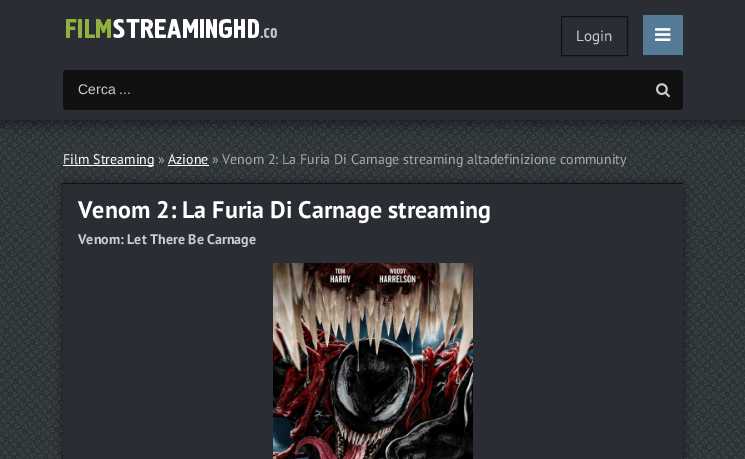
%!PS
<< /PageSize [745 459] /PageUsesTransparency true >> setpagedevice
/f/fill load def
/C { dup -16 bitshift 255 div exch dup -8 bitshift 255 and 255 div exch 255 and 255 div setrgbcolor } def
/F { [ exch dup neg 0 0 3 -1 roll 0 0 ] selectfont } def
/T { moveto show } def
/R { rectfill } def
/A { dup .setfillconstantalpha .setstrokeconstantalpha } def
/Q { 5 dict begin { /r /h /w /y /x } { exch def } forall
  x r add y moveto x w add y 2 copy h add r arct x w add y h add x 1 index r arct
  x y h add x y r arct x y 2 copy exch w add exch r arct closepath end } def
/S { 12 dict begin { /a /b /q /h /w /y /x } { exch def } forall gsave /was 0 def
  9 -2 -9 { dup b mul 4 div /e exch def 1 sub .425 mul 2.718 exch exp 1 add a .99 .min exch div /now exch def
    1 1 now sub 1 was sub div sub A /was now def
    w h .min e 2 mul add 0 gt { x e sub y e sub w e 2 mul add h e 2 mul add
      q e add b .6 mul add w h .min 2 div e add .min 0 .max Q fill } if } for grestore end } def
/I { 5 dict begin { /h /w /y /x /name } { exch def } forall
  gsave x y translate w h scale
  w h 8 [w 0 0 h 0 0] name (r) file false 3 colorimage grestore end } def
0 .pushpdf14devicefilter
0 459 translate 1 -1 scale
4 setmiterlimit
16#FFFFFF C
0 0 745 459 R
(1.rgb) 0 120 745 339 I
16#000000 C
-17 5 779 120 0 5.5 .4 S
16#2A2D34 C
0 0 745 120 R
(2.rgb) 66 19 211 19 I
16#111111 C
561.5 16.5 66 39 rectstroke
/PTSans-Regular 15 F
16#CCCCCC C
(Login) 576 41 T
16#547B97 C
643 15 40 40 R
(3.rgb) 655 28 16 13 I
16#111111 C
63 70 620 40 4 Q f
/LiberationSans-Regular 14 F
16#CCCCCC C
(Cerca ...) 78 94 T
(4.rgb) 656 83 14 15 I
16#000000 C
63 184 620 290 0 5 .6 S
16#111111 C
63 183 620 1 R
16#FFFFFF C
63 165 91 1 R
/PTSans-Regular 14 F
(Film Streaming) 63 164 T
16#AAAAAA C
(») 158 164 T
16#FFFFFF C
(Azione) 168 164 T
168 165 41 1 R
16#AAAAAA C
(» Venom 2: La Furia Di Carnage streaming altadefinizione community) 212 164 T
16#2A2D34 C
63 184 620 275 R
/PTSans-Bold 24 F
16#FFFFFF C
(Venom 2: La Furia Di Carnage streaming) 78 218 T
/PTSans-Bold 14 F
16#CCCCCC C
(Venom: Let There Be Carnage) 78 244 T
(5.rgb) 273 263 200 196 I
.poppdf14devicefilter showpage
